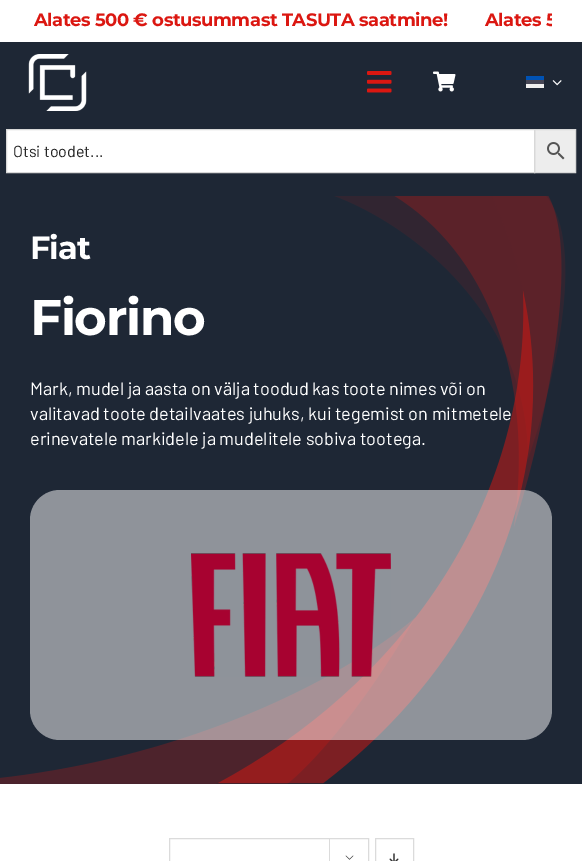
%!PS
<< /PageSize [582 861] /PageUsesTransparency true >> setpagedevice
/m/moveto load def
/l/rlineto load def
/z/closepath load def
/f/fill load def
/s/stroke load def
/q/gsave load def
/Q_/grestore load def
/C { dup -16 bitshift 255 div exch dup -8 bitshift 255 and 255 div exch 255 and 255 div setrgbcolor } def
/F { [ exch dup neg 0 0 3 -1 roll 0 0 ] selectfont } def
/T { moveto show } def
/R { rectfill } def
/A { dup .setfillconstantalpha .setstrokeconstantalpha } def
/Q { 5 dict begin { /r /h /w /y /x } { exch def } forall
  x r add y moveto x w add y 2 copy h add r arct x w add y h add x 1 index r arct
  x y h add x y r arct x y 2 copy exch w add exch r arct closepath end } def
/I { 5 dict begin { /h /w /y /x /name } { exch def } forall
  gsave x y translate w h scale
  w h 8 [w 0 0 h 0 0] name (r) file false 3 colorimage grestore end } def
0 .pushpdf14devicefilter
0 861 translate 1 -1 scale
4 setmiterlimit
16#FFFFFF C
0 0 582 861 R
q
30 10 522 22 rectclip
/Montserrat-Bold 18 F
16#DB1711 C
34 26 m -.45 0 (Alates 500 € ostusummast TASUTA saatmine!        Alates 5) ashow
Q_
16#1E2735 C
0 42 582 742 R
(1.rgb) 28 54 59 57 I
(2.rgb) 367 71 25 22 I
(3.rgb) 433 71 23 21 I
16#0052B4 C
526 76 18 4 R
16#464655 C
526 80 18 4 R
16#F0F0F0 C
526 84 18 4 R
(4.rgb) 552 80 10 6 I
16#EDEDED C
534.5 129.5 m 41 0 l 0 43 l -41 0 l z q f Q_
16#D8D8D8 C
s
16#FFFFFF C
6.5 129.5 m 528 0 l 0 43 l -528 0 l z q f Q_
16#D8D8D8 C
s
/Barlow-Regular 16 F
16#222222 C
(Otsi toodet...) 13 157 T
(5.rgb) 547 142 18 18 I
(6.rgb) 0 196 566 588 I
/Montserrat-Bold 32 F
16#FFFFFF C
30 259 m -1 0 (Fiat) ashow
/Montserrat-Bold 50 F
30 335 m -1.25 0 (Fiorino) ashow
/Barlow-Regular 18 F
(Mark, mudel ja aasta on välja toodud kas toote nimes või on) 30 395 T
(valitavad toote detailvaates juhuks, kui tegemist on mitmetele) 30 420 T
(erinevatele markidele ja mudelitele sobiva tootega.) 30 445 T
0.5 A
30 490 522 250 30 Q f
1 A
(7.rgb) 191 553 200 124 I
16#DBDBDB C
169.5 838.5 199 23 rectstroke
329 838 1 23 R
(8.rgb) 345 855 9 5 I
375.5 838.5 38 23 rectstroke
(9.rgb) 389 853 10 8 I
.poppdf14devicefilter showpage
